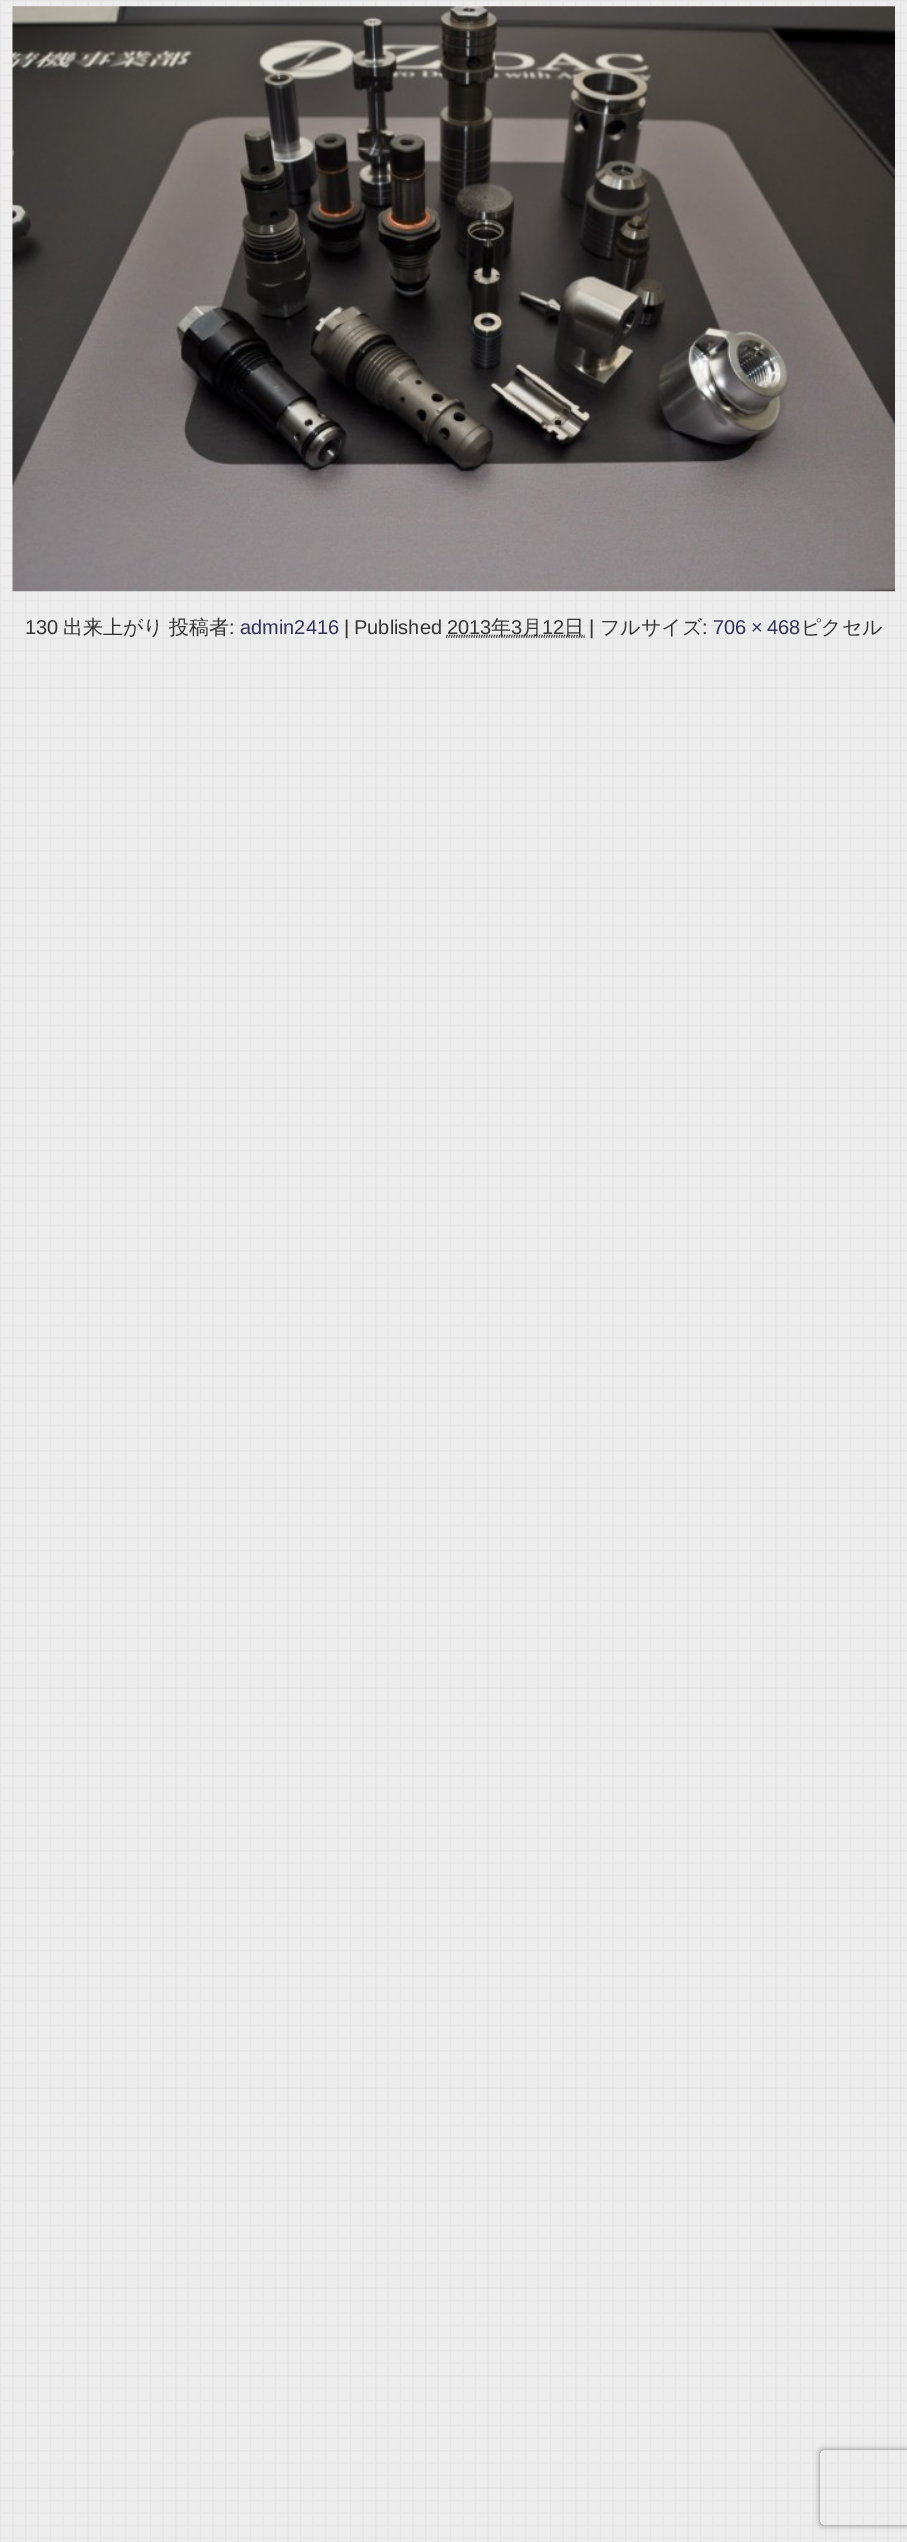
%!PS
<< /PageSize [907 2542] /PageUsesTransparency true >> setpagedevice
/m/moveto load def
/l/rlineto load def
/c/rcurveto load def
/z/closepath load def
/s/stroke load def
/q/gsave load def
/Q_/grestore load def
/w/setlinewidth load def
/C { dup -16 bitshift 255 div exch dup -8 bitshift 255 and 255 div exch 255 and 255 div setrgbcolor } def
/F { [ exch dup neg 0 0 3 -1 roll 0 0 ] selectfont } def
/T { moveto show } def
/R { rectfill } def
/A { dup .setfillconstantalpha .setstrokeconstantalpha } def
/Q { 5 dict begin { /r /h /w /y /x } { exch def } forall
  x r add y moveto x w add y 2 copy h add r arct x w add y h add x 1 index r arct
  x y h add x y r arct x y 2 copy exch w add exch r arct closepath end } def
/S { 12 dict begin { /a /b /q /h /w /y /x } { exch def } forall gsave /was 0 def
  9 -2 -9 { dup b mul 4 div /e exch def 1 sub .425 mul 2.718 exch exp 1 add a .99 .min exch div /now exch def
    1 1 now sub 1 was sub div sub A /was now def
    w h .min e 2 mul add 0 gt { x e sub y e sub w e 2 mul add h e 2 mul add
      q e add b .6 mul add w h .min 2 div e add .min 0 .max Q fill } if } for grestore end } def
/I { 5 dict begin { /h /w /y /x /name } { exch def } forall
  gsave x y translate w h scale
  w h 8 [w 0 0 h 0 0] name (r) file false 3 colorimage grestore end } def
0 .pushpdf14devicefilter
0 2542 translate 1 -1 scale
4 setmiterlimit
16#FFFFFF C
0 0 907 2542 R
(1.rgb) 0 0 907 2542 I
(2.rgb) 12 6 883 586 I
/LiberationSans-Regular 20 F
16#333333 C
(130) 25 634 T
/WenQuanYiZenHei-Medium 20 F
(出来上がり) 63 634 T
(投稿者) 169 634 T
/LiberationSans-Regular 20 F
(:) 229 634 T
16#333355 C
(admin2416) 240 634 T
16#333333 C
(|) 344 634 T
(Published) 354 634 T
1.2 w
[1.25 1.25] 0 setdash
446 637 m 139 0 l s
446.5 635.5 m 138 0 l s
(2013) 447 634 T
/WenQuanYiZenHei-Medium 20 F
(年) 491 634 T
/LiberationSans-Regular 20 F
(3) 511 634 T
/WenQuanYiZenHei-Medium 20 F
(月) 522 634 T
/LiberationSans-Regular 20 F
(12) 542 634 T
/WenQuanYiZenHei-Medium 20 F
(日) 564 634 T
/LiberationSans-Regular 20 F
(|) 589 634 T
/WenQuanYiZenHei-Medium 20 F
(フルサイズ) 600 634 T
/LiberationSans-Regular 20 F
(:) 702 634 T
16#333355 C
713 634 m -1 0 32 (706 × 468) widthshow
/WenQuanYiZenHei-Medium 20 F
16#333333 C
(ピクセル) 801 634 T
q
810 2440 m 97 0 l 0 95 l -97 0 l z 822.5 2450 m 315 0 l 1.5 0 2.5 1 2.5 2.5 c 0 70 l 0 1.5 -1 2.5 -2.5 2.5 c -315 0 l -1.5 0 -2.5 -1 -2.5 -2.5 c 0 -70 l 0 -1.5 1 -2.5 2.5 -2.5 c z eoclip newpath
16#808080 C
820 2450 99 75 2.5 3 1 S
Q_
.poppdf14devicefilter showpage
